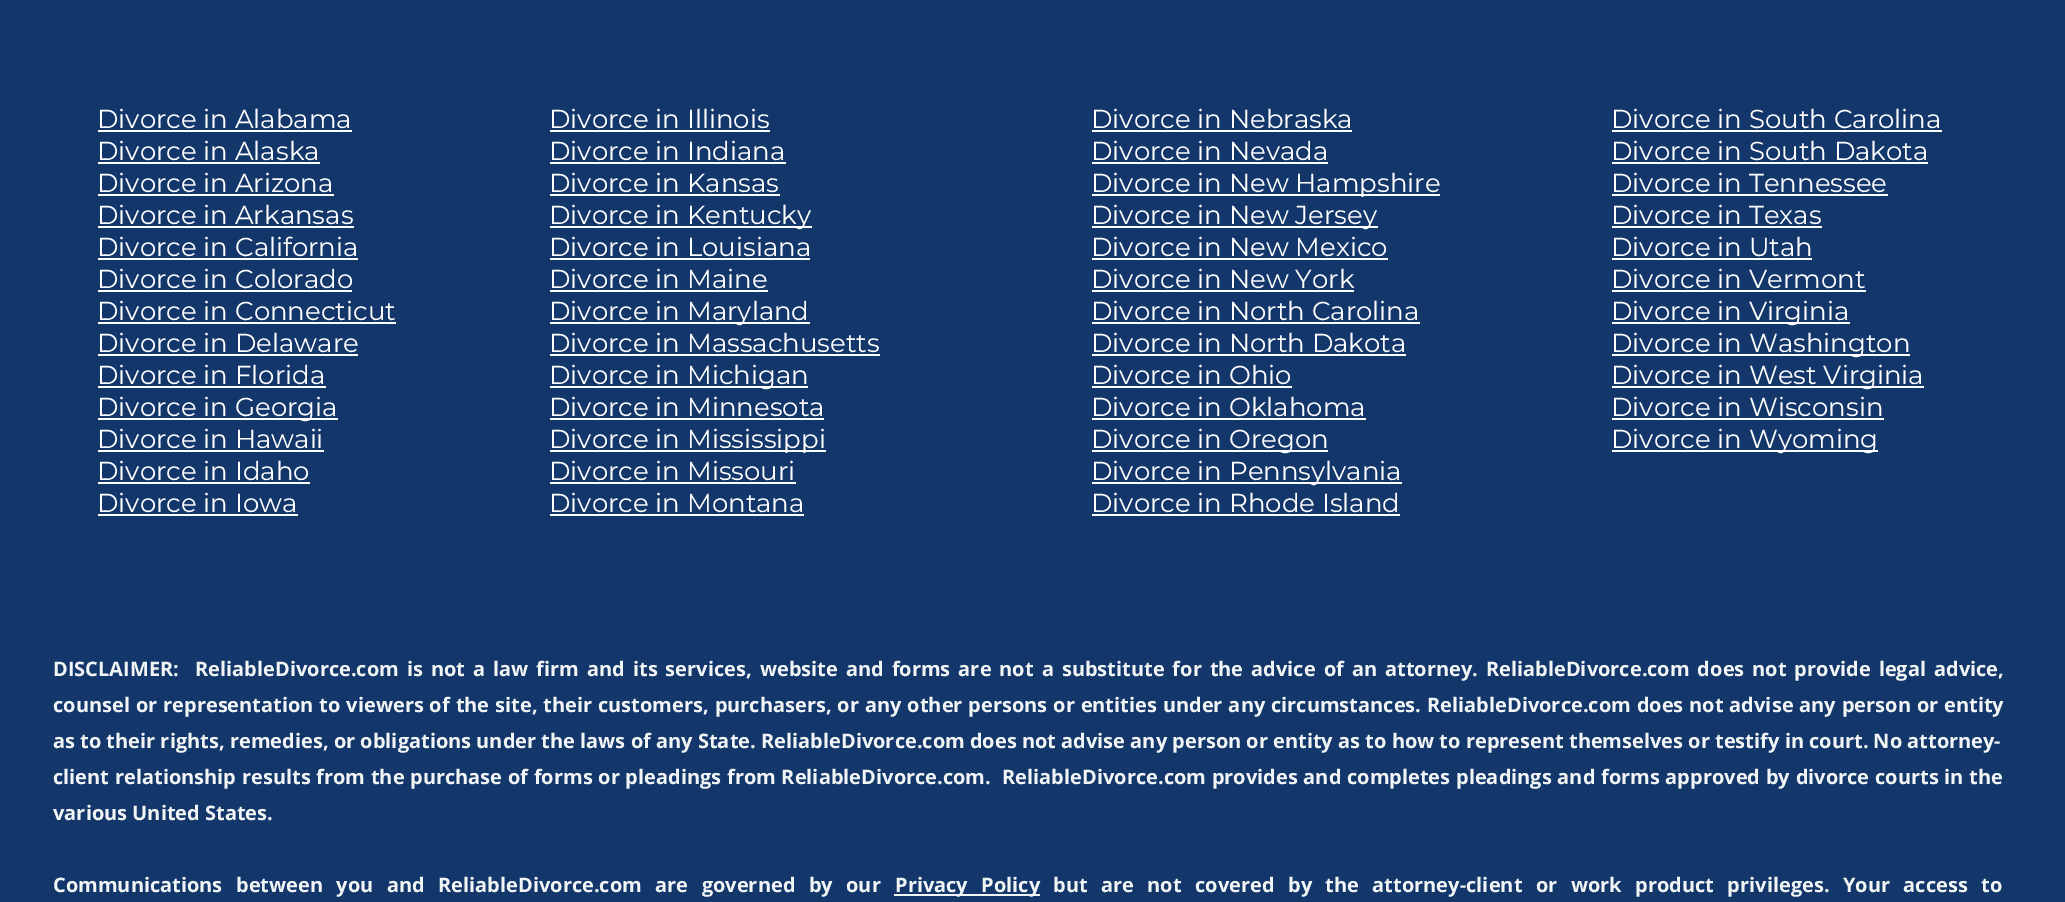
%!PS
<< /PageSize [2065 902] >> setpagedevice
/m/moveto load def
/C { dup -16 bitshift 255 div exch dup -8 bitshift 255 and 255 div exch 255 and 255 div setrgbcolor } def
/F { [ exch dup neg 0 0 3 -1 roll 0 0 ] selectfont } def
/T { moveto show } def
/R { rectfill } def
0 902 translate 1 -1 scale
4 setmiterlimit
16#14376B C
0 0 2065 902 R
/Montserrat-Regular 26 F
16#FFFFFF C
(Divorce in Alabama) 97 128 T
98 130 254 2 R
(Divorce in Alaska) 97 160 T
98 162 222 2 R
(Divorce in Arizona) 97 192 T
98 194 236 2 R
(Divorce in Arkansas) 97 224 T
98 226 256 2 R
(Divorce in California) 97 256 T
98 258 260 2 R
(Divorce in Colorado) 97 288 T
98 290 254 2 R
(Divorce in Connecticut) 97 320 T
98 322 298 2 R
(Divorce in Delaware) 97 352 T
98 354 260 2 R
(Divorce in Florida) 97 384 T
98 386 228 2 R
98 418 240 2 R
(Divorce in Georgia) 97 416 T
(Divorce in Hawaii) 97 448 T
98 450 226 2 R
(Divorce in Idaho) 97 480 T
98 482 212 2 R
(Divorce in Iowa) 97 512 T
98 514 200 2 R
(Divorce in Illinois) 549 128 T
550 130 220 2 R
(Divorce in Indiana) 549 160 T
550 162 236 2 R
(Divorce in Kansas) 549 192 T
550 194 230 2 R
550 226 262 2 R
(Divorce in Kentucky) 549 224 T
(Divorce in Louisiana) 549 256 T
550 258 260 2 R
(Divorce in Maine) 549 288 T
550 290 218 2 R
550 322 260 2 R
(Divorce in Maryland) 549 320 T
(Divorce in Massachusetts) 549 352 T
550 354 330 2 R
550 386 258 2 R
(Divorce in Michigan) 549 384 T
(Divorce in Minnesota) 549 416 T
550 418 274 2 R
550 450 276 2 R
(Divorce in Mississippi) 549 448 T
(Divorce in Missouri) 549 480 T
550 482 246 2 R
(Divorce in Montana) 549 512 T
550 514 254 2 R
(Divorce in Nebraska) 1091 128 T
1092 130 260 2 R
(Divorce in Nevada) 1091 160 T
1092 162 236 2 R
1092 194 348 2 R
(Divorce in New Hampshire) 1091 192 T
1092 226 286 2 R
(Divorce in New Jersey) 1091 224 T
(Divorce in New Mexico) 1091 256 T
1092 258 296 2 R
(Divorce in New York) 1091 288 T
1092 290 262 2 R
(Divorce in North Carolina) 1091 320 T
1092 322 328 2 R
(Divorce in North Dakota) 1091 352 T
1092 354 314 2 R
(Divorce in Ohio) 1091 384 T
1092 386 200 2 R
(Divorce in Oklahoma) 1091 416 T
1092 418 274 2 R
1092 450 236 2 R
(Divorce in Oregon) 1091 448 T
1092 482 310 2 R
(Divorce in Pennsylvania) 1091 480 T
(Divorce in Rhode Island) 1091 512 T
1092 514 308 2 R
(Divorce in South Carolina) 1611 128 T
1612 130 330 2 R
(Divorce in South Dakota) 1611 160 T
1612 162 316 2 R
(Divorce in Tennessee) 1611 192 T
1612 194 276 2 R
(Divorce in Texas) 1611 224 T
1612 226 210 2 R
(Divorce in Utah) 1611 256 T
1612 258 200 2 R
(Divorce in Vermont) 1611 288 T
1612 290 254 2 R
1612 322 238 2 R
(Divorce in Virginia) 1611 320 T
1612 354 298 2 R
(Divorce in Washington) 1611 352 T
1612 386 312 2 R
(Divorce in West Virginia) 1611 384 T
(Divorce in Wisconsin) 1611 416 T
1612 418 272 2 R
1612 450 266 2 R
(Divorce in Wyoming) 1611 448 T
/OpenSans-Bold 20 F
16#F2F5F5 C
(DISCLAIMER:) 53 676 T
195 676 m 2.8 0 32 (ReliableDivorce.com is not a law firm and its services, website and forms are not a substitute for the advice of an attorney. ReliableDivorce.com does not provide legal advice,) widthshow
53 712 m .7 0 32 (counsel or representation to viewers of the site, their customers, purchasers, or any other persons or entities under any circumstances. ReliableDivorce.com does not advise any person or entity) widthshow
(as to their rights, remedies, or obligations under the laws of any State. ReliableDivorce.com does not advise any person or entity as to how to represent themselves or testify in court. No attorney-) 53 748 T
53 784 m .5 0 32 (client relationship results from the purchase of forms or pleadings from ReliableDivorce.com.  ReliableDivorce.com provides and completes pleadings and forms approved by divorce courts in the) widthshow
(various United States.) 53 820 T
53 892 m 8.25 0 32 (Communications between you and ReliableDivorce.com are governed by our) widthshow
894 894 146 2 R
895 892 m 8.25 0 32 (Privacy Policy) widthshow
1053 892 m 8.25 0 32 (but are not covered by the attorney-client or work product privileges. Your access to) widthshow
showpage
